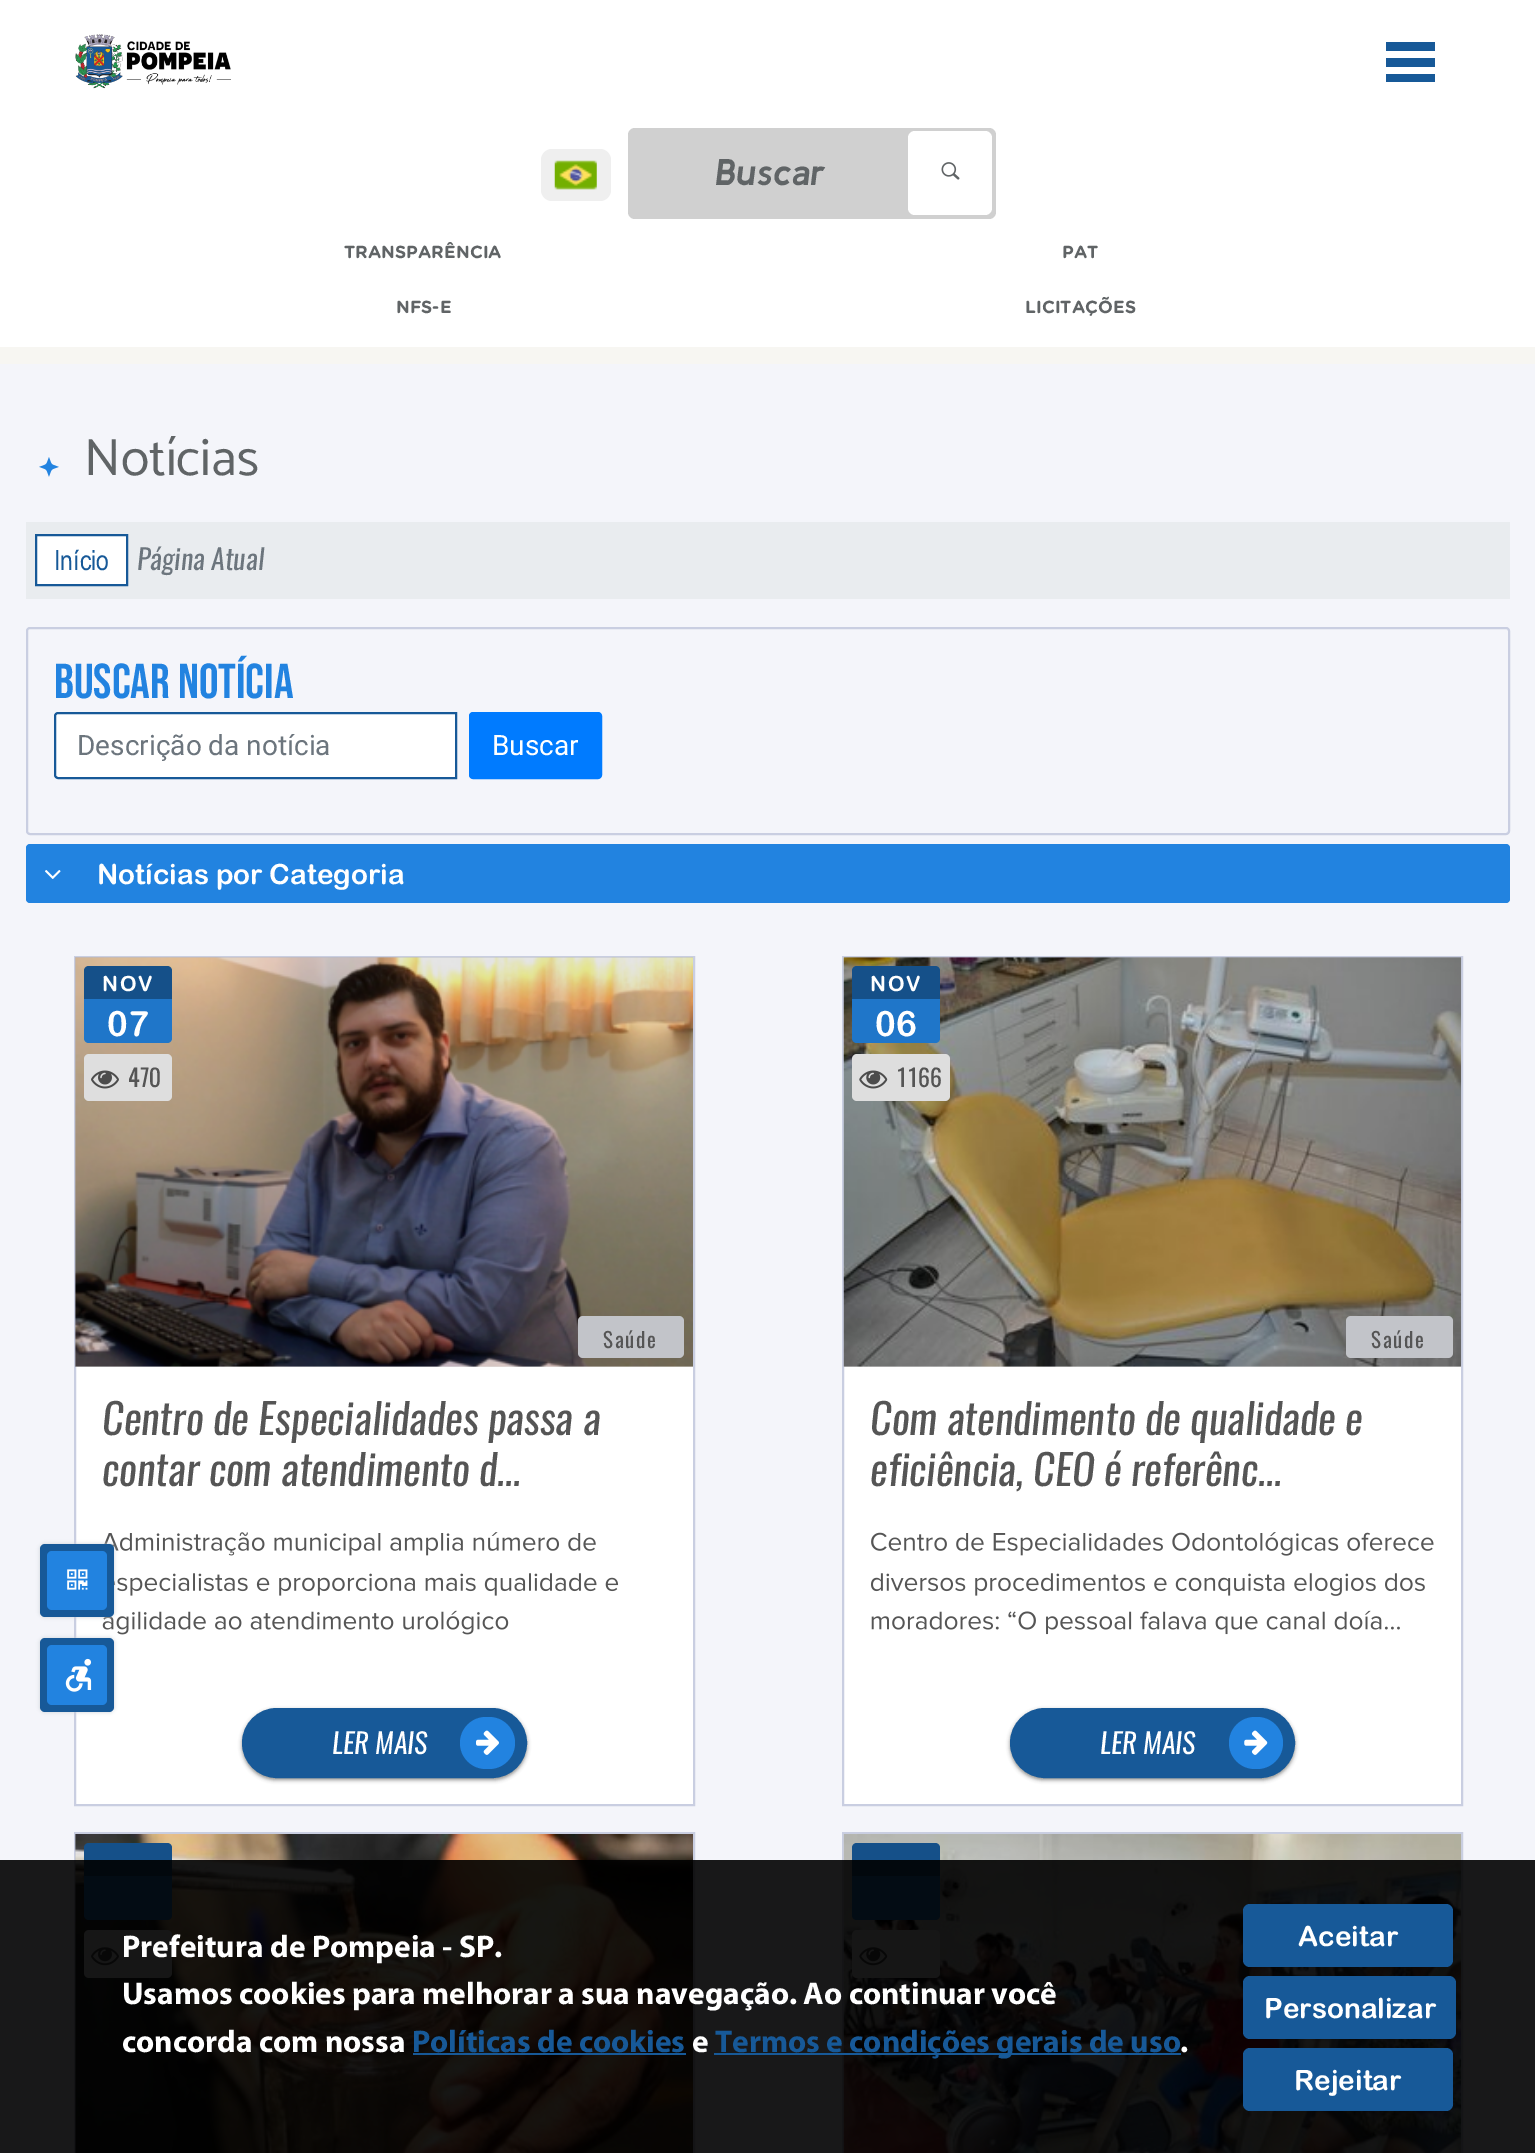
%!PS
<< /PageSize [1535 2153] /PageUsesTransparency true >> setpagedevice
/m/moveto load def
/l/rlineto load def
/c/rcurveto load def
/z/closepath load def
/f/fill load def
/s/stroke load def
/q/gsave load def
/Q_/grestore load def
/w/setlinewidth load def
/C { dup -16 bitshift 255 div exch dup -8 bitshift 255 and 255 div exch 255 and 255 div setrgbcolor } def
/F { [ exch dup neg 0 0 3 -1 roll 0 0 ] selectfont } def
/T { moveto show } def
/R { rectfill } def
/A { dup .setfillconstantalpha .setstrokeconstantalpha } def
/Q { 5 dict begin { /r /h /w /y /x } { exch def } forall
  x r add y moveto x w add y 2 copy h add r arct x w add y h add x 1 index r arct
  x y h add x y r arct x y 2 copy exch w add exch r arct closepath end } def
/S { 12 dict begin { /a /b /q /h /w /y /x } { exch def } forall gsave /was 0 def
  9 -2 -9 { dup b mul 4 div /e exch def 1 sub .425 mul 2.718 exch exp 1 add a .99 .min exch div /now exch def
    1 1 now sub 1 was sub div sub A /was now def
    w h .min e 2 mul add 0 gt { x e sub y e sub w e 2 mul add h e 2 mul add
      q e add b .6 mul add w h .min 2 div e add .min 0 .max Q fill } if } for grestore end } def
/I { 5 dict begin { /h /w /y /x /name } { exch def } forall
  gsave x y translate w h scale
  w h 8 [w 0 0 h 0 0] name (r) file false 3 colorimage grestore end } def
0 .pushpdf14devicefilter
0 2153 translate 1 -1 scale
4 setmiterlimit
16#F7F6F2 C
0 0 1535 2153 R
16#FFFFFF C
0 0 1535 347 R
(1.rgb) 75 34 156 55 I
16#175998 C
1386 42 49 9 R
1386 58 49 9 R
1386 74 49 8 R
16#EFEFEF C
541 149 70 52 11 Q f
(2.rgb) 554 160 43 30 I
16#D0D0D0 C
628 128 368 91 7 Q f
/KulimPark-BoldItalic 37 F
16#606466 C
(Buscar) 715 185 T
16#FFFFFF C
908 131 84 84 7 Q f
(3.rgb) 941 162 19 18 I
/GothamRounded-Bold 17.5 F
16#606466 C
(TRANSPARÊNCIA) 344 258 T
(PAT) 1062 258 T
(NFS-E) 396 313 T
(LICITAÇÕES) 1025 313 T
16#F4F5FA C
0 364 1535 1789 R
(4.rgb) 39 457 20 20 I
/Catamaran-Regular 52.5 F
16#606466 C
(Notícias) 84 475 T
16#E9ECEF C
26 522 1484 77 R
16#FFFFFF C
36 535 m 91 0 l 0 50 l -91 0 l z q f Q_
16#175998 C
2 w
s
/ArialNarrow-Regular 28 F
(Início) 54 570 T
/Oswald-Italic 28 F
16#6C757D C
(Página Atual) 137 570 T
16#C9CEE1 C
27 628 1482 206 3 Q s
/BebasNeue-Regular 49 F
16#2283E0 C
(Buscar Notícia) 54 698 T
16#FFFFFF C
58 713 m 398 0 l 0 65 l -398 0 l -1.5 0 -3 -1.5 -3 -3 c 0 -59 l 0 -1.5 1.5 -3 3 -3 c z q f Q_
16#175998 C
s
/Roboto-Regular 28 F
16#6C757D C
(Descrição da notícia) 77 755 T
16#007BFF C
470 713 131 65 3 Q q f Q_
s
16#FFFFFF C
(Buscar) 492 755 T
16#2283E0 C
26 844 1484 59 4 Q f
(5.rgb) 45 870 16 9 I
/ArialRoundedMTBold-Bold 28 F
16#FFFFFF C
(Notícias por Categoria) 97 884 T
76 1366 617 438 R
16#C9CEE1 C
75 957 619 848 rectstroke
(6.rgb) 75 957 618 410 I
16#175998 C
89 966 m 78 0 l 3 0 5 2 5 5 c 0 28 l -88 0 l 0 -28 l 0 -3 2 -5 5 -5 c z f
16#2283E0 C
84 999 m 88 0 l 0 39 l 0 3 -2 5 -5 5 c -78 0 l -3 0 -5 -2 -5 -5 c z f
16#F7F7F7 C
84 1054 88 47 5 Q f
(7.rgb) 91 1070 28 19 I
16#D8DAE0 C
578 1316 106 42 5 Q f
0.1 A
16#000000 C
75 957 618 410 R
/ArialRoundedMTBold-Bold 21 F
1 A
16#FFFFFF C
102 991 m 1.75 0 (NOV) ashow
/ArialRoundedMTBold-Bold 35 F
(07) 107 1036 T
/Oswald-Regular 24 F
16#555555 C
(470) 128 1087 T
/Oswald-Regular 21 F
603 1348 m 1.75 0 (Saúde) ashow
/Oswald-Italic 42 F
(Centro de Especialidades passa a) 102 1435 T
(contar com atendimento d...) 102 1486 T
(8.rgb) 104 1532 492 24 I
(9.rgb) 114 1573 505 23 I
(10.rgb) 102 1610 407 25 I
16#8F8F8D C
242 1710 285 70 35 2 1 S
16#175998 C
244 1710 281 66 33 Q q f Q_
4 w
s
/Oswald-Italic 28 F
16#FFFFFF C
(LER MAIS) 332 1754 T
16#2283E0 C
460 1717 55 52 26 Q f
(11.rgb) 476 1730 23 25 I
16#FFFFFF C
844 1366 617 438 R
16#C9CEE1 C
2 w
843 957 619 848 rectstroke
(12.rgb) 843 957 619 410 I
16#175998 C
857 966 m 78 0 l 3 0 5 2 5 5 c 0 28 l -88 0 l 0 -28 l 0 -3 2 -5 5 -5 c z f
16#2283E0 C
852 999 m 88 0 l 0 39 l 0 3 -2 5 -5 5 c -78 0 l -3 0 -5 -2 -5 -5 c z f
16#F7F7F7 C
852 1054 98 47 5 Q f
(13.rgb) 859 1070 29 19 I
16#D8DAE0 C
1346 1316 107 42 5 Q f
0.1 A
16#000000 C
844 957 617 410 R
/ArialRoundedMTBold-Bold 21 F
1 A
16#FFFFFF C
870 991 m 1.75 0 (NOV) ashow
/ArialRoundedMTBold-Bold 35 F
(06) 875 1036 T
/Oswald-Regular 24 F
16#555555 C
(1166) 896 1087 T
/Oswald-Regular 21 F
1371 1348 m 1.75 0 (Saúde) ashow
/Oswald-Italic 42 F
(Com atendimento de qualidade e) 870 1435 T
(eficiência, CEO é referênc...) 870 1486 T
(14.rgb) 871 1532 563 24 I
(15.rgb) 871 1573 554 23 I
(16.rgb) 871 1610 529 25 I
16#8F8F8D C
1010 1710 285 70 35 2 1 S
16#175998 C
1012 1710 281 66 33 Q q f Q_
4 w
s
/Oswald-Italic 28 F
16#FFFFFF C
(LER MAIS) 1100 1754 T
16#2283E0 C
1229 1717 54 52 26 Q f
(17.rgb) 1244 1730 24 25 I
16#C9CEE1 C
2 w
75 1833 619 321 rectstroke
(18.rgb) 75 1834 618 319 I
16#175998 C
89 1843 m 78 0 l 3 0 5 2 5 5 c 0 28 l -88 0 l 0 -28 l 0 -3 2 -5 5 -5 c z f
16#2283E0 C
84 1876 m 88 0 l 0 39 l 0 3 -2 5 -5 5 c -78 0 l -3 0 -5 -2 -5 -5 c z f
16#F7F7F7 C
84 1930 88 48 5 Q f
(19.rgb) 91 1947 28 19 I
0.1 A
16#000000 C
75 1834 618 319 R
1 A
16#C9CEE1 C
843 1833 619 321 rectstroke
(20.rgb) 843 1834 619 319 I
16#155089 C
857 1843 m 78 0 l 3 0 5 2 5 5 c 0 28 l -88 0 l 0 -28 l 0 -3 2 -5 5 -5 c z f
16#1F76CA C
852 1876 m 88 0 l 0 39 l 0 3 -2 5 -5 5 c -78 0 l -3 0 -5 -2 -5 -5 c z f
16#DEDEDE C
852 1930 88 48 5 Q f
(21.rgb) 859 1947 29 19 I
0.9 A
16#000000 C
0 1860 1535 293 R
/Myriad-Bold 31.5 F
1 A
16#FFFFFF C
(Prefeitura de Pompeia - SP.) 122 1957 T
(Usamos cookies para melhorar a sua navegação. Ao continuar você) 122 2004 T
(concorda com nossa) 122 2052 T
16#175998 C
(Políticas de cookies) 412 2052 T
413 2053 273 2 R
16#FFFFFF C
(e) 692 2052 T
16#175998 C
714 2053 467 2 R
(Termos e condições gerais de uso) 715 2052 T
16#FFFFFF C
(.) 1180 2052 T
16#175998 C
1243 1904 210 63 7 Q f
/ArialRoundedMTBold-Bold 28 F
16#FFFFFF C
(Aceitar) 1298 1946 T
16#175998 C
1243 1976 213 63 7 Q f
16#FFFFFF C
(Personalizar) 1264 2018 T
16#175998 C
1243 2048 210 63 7 Q f
16#FFFFFF C
(Rejeitar) 1294 2090 T
16#CBD0D6 C
40 1544 74 73 5 2 1 S
16#175998 C
40 1544 74 73 5 Q f
16#2283E0 C
47 1551 60 59 5 Q f
(22.rgb) 67 1569 21 21 I
16#CBD0D6 C
40 1638 74 74 5 2 1 S
16#175998 C
40 1638 74 74 5 Q f
16#2283E0 C
47 1645 60 60 5 Q f
(23.rgb) 65 1658 27 34 I
.poppdf14devicefilter showpage
